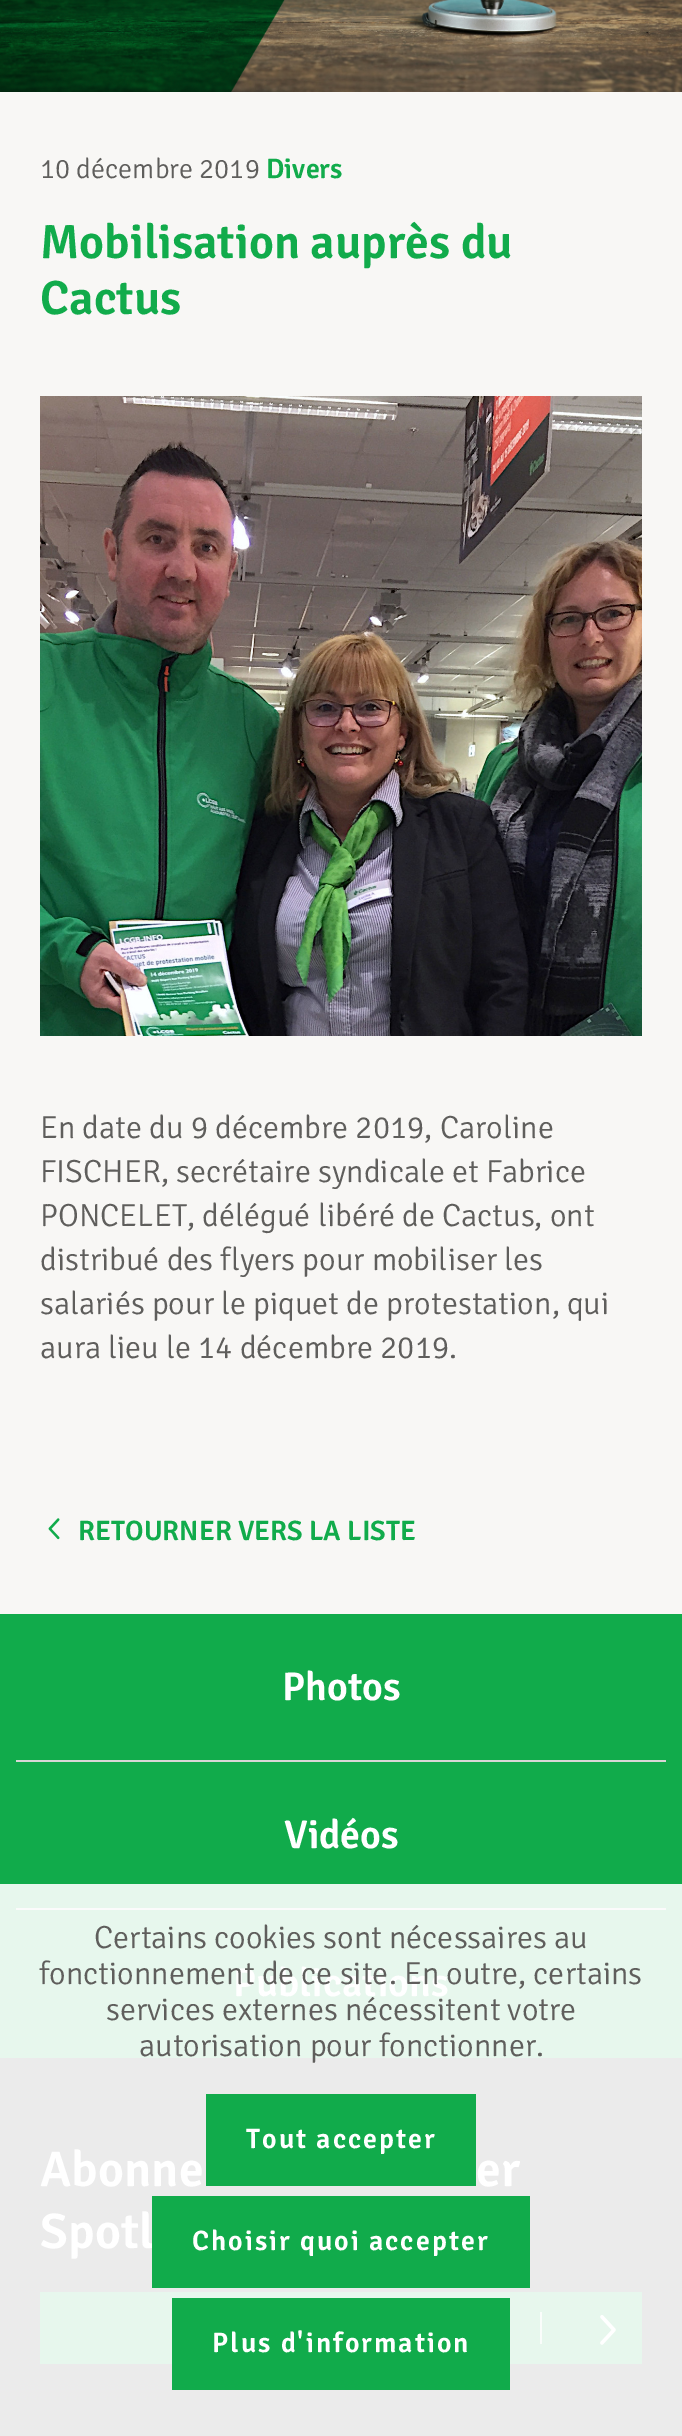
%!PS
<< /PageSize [682 2436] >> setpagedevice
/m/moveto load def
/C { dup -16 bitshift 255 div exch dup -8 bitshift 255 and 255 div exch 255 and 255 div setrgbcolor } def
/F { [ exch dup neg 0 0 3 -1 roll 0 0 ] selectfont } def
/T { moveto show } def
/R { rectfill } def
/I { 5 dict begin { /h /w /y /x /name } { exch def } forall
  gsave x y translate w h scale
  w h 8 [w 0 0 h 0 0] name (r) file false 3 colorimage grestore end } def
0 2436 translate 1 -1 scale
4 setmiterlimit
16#FFFFFF C
0 0 682 2436 R
(1.rgb) 0 0 682 92 I
16#F8F7F5 C
0 92 682 1522 R
/Signika-Light 28 F
16#5F5E5C C
(10 décembre 2019) 40 178 T
/Signika-SemiBold 28 F
16#11AB4B C
(Divers) 266 178 T
/Signika-SemiBold 48 F
(Mobilisation auprès du) 40 258 T
(Cactus) 40 314 T
(2.rgb) 40 396 602 640 I
/Signika-Light 32 F
16#5F5E5C C
(En date du 9 décembre 2019, Caroline) 40 1138 T
(FISCHER, secrétaire syndicale et Fabrice) 40 1182 T
(PONCELET, délégué libéré de Cactus, ont) 40 1226 T
(distribué des flyers pour mobiliser les) 40 1270 T
(salariés pour le piquet de protestation, qui) 40 1314 T
(aura lieu le 14 décembre 2019.) 40 1358 T
(3.rgb) 48 1518 12 22 I
/Signika-SemiBold 28 F
16#11AB4B C
(RETOURNER VERS LA LISTE) 78 1540 T
0 1614 682 270 R
/Signika-SemiBold 40 F
16#FFFFFF C
(Photos) 282 1700 T
16#D8D7D6 C
16 1760 650 2 R
16#E7F7ED C
0 1884 682 174 R
16#FFFFFF C
(Vidéos) 284 1848 T
16#FBFBFB C
16 1908 650 2 R
16#FFFFFF C
(Publications) 233 1996 T
16#EBEBEB C
0 2058 682 378 R
/Signika-SemiBold 50 F
16#FFFFFF C
(Abonne) 40 2186 T
(er) 476 2186 T
(Spotl) 40 2248 T
16#E7F7ED C
40 2292 602 72 R
16#FAFDFB C
540 2312 2 32 R
(4.rgb) 600 2315 16 30 I
/Signika-Light 32 F
16#5F5E5C C
(Certains cookies sont nécessaires au) 94 1948 T
(fonctionnement de ce site. En outre, certains) 39 1984 T
(services externes nécessitent votre) 106 2020 T
(autorisation pour fonctionner.) 139 2056 T
16#11AB4B C
206 2094 270 92 R
/Signika-SemiBold 28 F
16#FFFFFF C
246 2148 m 2 0 (Tout accepter) ashow
16#11AB4B C
152 2196 378 92 R
16#FFFFFF C
192 2250 m 2 0 (Choisir quoi accepter) ashow
16#11AB4B C
172 2298 338 92 R
16#FFFFFF C
212 2352 m 2 0 (Plus d'information) ashow
showpage
